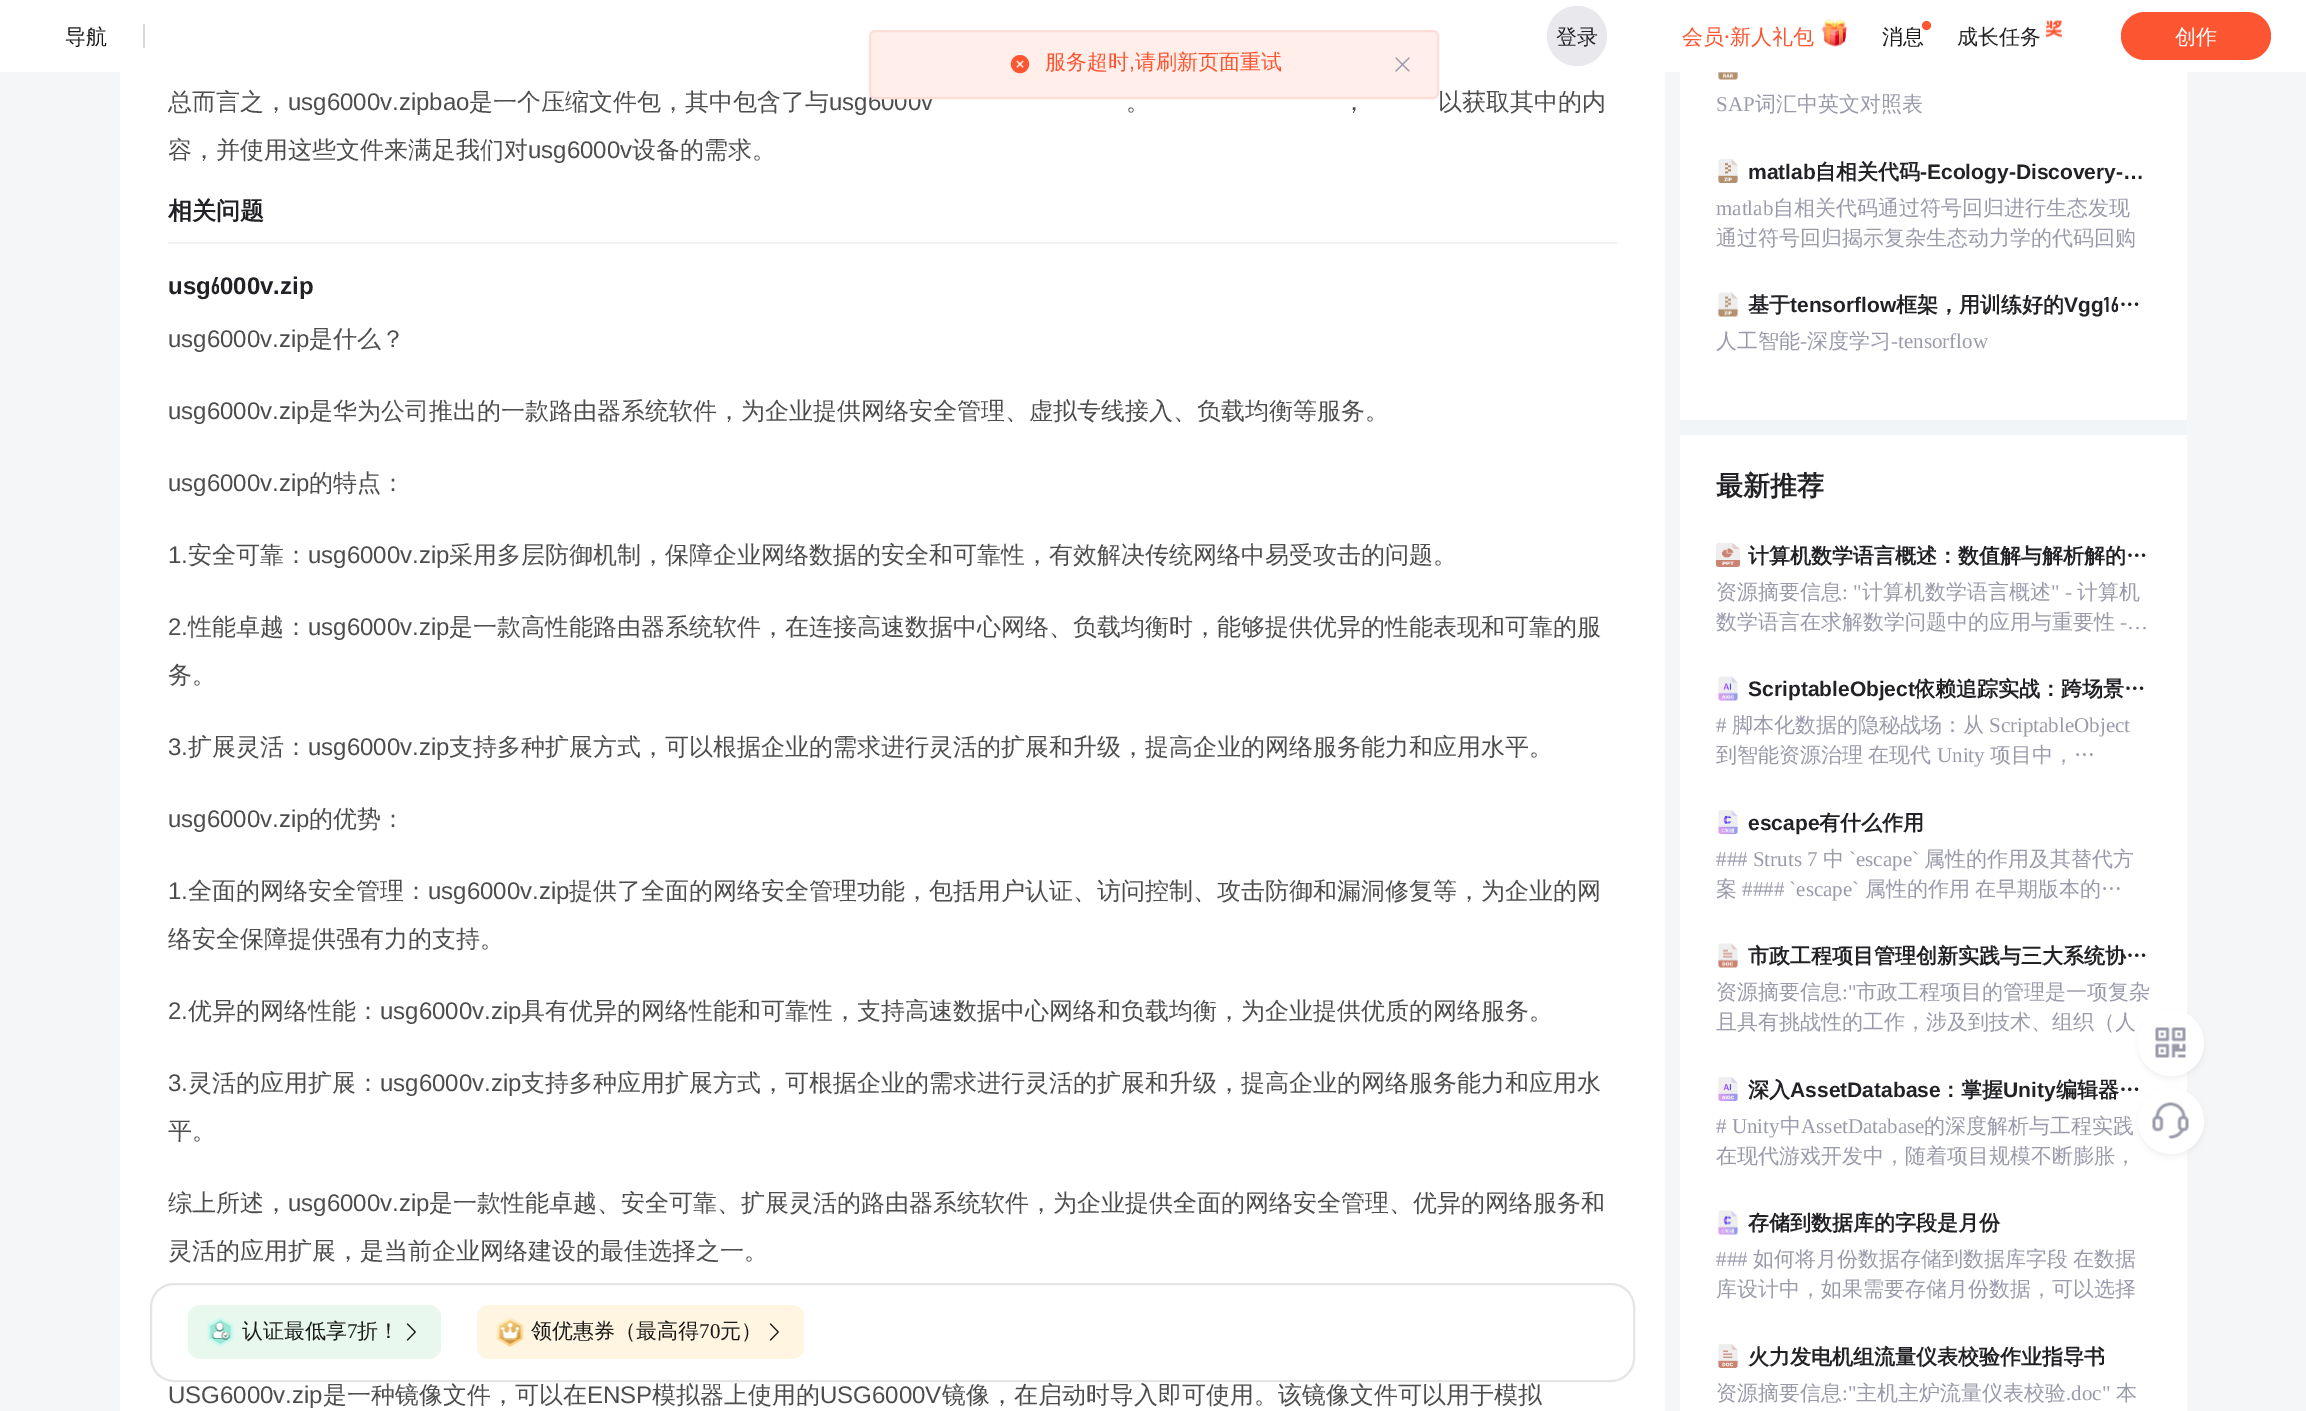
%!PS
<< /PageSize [2306 1411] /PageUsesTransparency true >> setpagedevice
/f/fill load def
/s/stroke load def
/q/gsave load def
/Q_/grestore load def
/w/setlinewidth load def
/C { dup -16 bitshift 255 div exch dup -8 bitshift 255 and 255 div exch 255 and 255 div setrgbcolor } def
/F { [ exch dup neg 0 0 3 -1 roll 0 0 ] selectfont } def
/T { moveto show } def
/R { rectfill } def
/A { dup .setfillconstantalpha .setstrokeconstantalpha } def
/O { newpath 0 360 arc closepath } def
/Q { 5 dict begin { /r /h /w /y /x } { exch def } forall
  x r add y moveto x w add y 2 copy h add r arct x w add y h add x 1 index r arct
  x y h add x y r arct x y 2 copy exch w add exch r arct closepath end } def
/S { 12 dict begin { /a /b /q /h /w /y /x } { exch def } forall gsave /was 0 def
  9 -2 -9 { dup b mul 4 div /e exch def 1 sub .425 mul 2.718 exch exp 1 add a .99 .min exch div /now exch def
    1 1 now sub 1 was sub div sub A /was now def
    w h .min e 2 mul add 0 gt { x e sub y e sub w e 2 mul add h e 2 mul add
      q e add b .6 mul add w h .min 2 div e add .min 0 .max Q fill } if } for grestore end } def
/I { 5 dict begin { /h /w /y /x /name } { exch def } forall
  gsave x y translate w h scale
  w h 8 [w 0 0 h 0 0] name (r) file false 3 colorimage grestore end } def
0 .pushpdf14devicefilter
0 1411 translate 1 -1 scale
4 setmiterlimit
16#F5F6F7 C
0 0 2306 1411 R
16#FFFFFF C
0 0 2306 72 R
/WenQuanYiZenHei-Medium 21 F
16#1A1A1A C
(导航) 65 44 T
16#D8D8D8 C
143 24 2 24 1 Q f
16#E8E8ED C
1577 36 30 O f
16#222226 C
(登录) 1556 44 T
16#FC5531 C
(会员) 1682 44 T
/Roboto-Medium 21 F
(·) 1724 44 T
/WenQuanYiZenHei-Medium 21 F
(新人礼包) 1730 44 T
(1.rgb) 1822 19 25 28 I
16#1A1A1A C
(消息) 1882 44 T
16#FC5531 C
1926.5 25.5 4.5 O f
16#222226 C
(成长任务) 1957 44 T
(2.rgb) 2045 20 17 18 I
16#FC5531 C
2121 12 150 48 24 Q f
16#FFFFFF C
(创作) 2175 44 T
120 72 1545 1339 R
/LiberationSans-Regular 24 F
16#4D4D4D C
(usg6000v) 829 110 T
16#FFEEEA C
870 31 568 67 5 Q q f Q_
16#FEDDD6 C
2 w
s
(3.rgb) 1010 55 20 19 I
/WenQuanYiZenHei-Medium 21 F
16#FC5531 C
(服务超时) 1045 69 T
/LiberationSans-Regular 21 F
(,) 1129 69 T
/WenQuanYiZenHei-Medium 21 F
(请刷新页面重试) 1135 69 T
(4.rgb) 1395 57 15 15 I
/WenQuanYiZenHei-Medium 24 F
16#4D4D4D C
(总而言之，) 168 110 T
/LiberationSans-Regular 24 F
(usg6000v.zipbao) 288 110 T
/WenQuanYiZenHei-Medium 24 F
(是一个压缩文件包，其中包含了与) 469 110 T
(。) 1126 110 T
(，) 1342 110 T
(以获取其中的内) 1438 110 T
(容，并使用这些文件来满足我们对) 168 158 T
/LiberationSans-Regular 24 F
(usg6000v) 528 158 T
/WenQuanYiZenHei-Medium 24 F
(设备的需求。) 632 158 T
16#F0F0F5 C
168 242 1449 2 R
/WenQuanYiZenHei-Bold 24 F
16#222226 C
(相关问题) 168 219 T
/LiberationSans-Bold 24 F
(usg) 168 294 T
/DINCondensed-Bold 24 F
(6) 211 294 T
/LiberationSans-Bold 24 F
(000v.zip) 220 294 T
/LiberationSans-Regular 24 F
16#4D4D4D C
(usg6000v.zip) 168 347 T
/WenQuanYiZenHei-Medium 24 F
(是什么？) 309 347 T
/LiberationSans-Regular 24 F
(usg6000v.zip) 168 419 T
/WenQuanYiZenHei-Medium 24 F
(是华为公司推出的一款路由器系统软件，为企业提供网络安全管理、虚拟专线接入、负载均衡等服务。) 309 419 T
/LiberationSans-Regular 24 F
(usg6000v.zip) 168 491 T
/WenQuanYiZenHei-Medium 24 F
(的特点：) 309 491 T
/LiberationSans-Regular 24 F
(1.) 168 563 T
/WenQuanYiZenHei-Medium 24 F
(安全可靠：) 188 563 T
/LiberationSans-Regular 24 F
(usg6000v.zip) 308 563 T
/WenQuanYiZenHei-Medium 24 F
(采用多层防御机制，保障企业网络数据的安全和可靠性，有效解决传统网络中易受攻击的问题。) 449 563 T
/LiberationSans-Regular 24 F
(2.) 168 635 T
/WenQuanYiZenHei-Medium 24 F
(性能卓越：) 188 635 T
/LiberationSans-Regular 24 F
(usg6000v.zip) 308 635 T
/WenQuanYiZenHei-Medium 24 F
(是一款高性能路由器系统软件，在连接高速数据中心网络、负载均衡时，能够提供优异的性能表现和可靠的服) 449 635 T
(务。) 168 683 T
/LiberationSans-Regular 24 F
(3.) 168 755 T
/WenQuanYiZenHei-Medium 24 F
(扩展灵活：) 188 755 T
/LiberationSans-Regular 24 F
(usg6000v.zip) 308 755 T
/WenQuanYiZenHei-Medium 24 F
(支持多种扩展方式，可以根据企业的需求进行灵活的扩展和升级，提高企业的网络服务能力和应用水平。) 449 755 T
/LiberationSans-Regular 24 F
(usg6000v.zip) 168 827 T
/WenQuanYiZenHei-Medium 24 F
(的优势：) 309 827 T
/LiberationSans-Regular 24 F
(1.) 168 899 T
/WenQuanYiZenHei-Medium 24 F
(全面的网络安全管理：) 188 899 T
/LiberationSans-Regular 24 F
(usg6000v.zip) 428 899 T
/WenQuanYiZenHei-Medium 24 F
(提供了全面的网络安全管理功能，包括用户认证、访问控制、攻击防御和漏洞修复等，为企业的网) 569 899 T
(络安全保障提供强有力的支持。) 168 947 T
/LiberationSans-Regular 24 F
(2.) 168 1019 T
/WenQuanYiZenHei-Medium 24 F
(优异的网络性能：) 188 1019 T
/LiberationSans-Regular 24 F
(usg6000v.zip) 380 1019 T
/WenQuanYiZenHei-Medium 24 F
(具有优异的网络性能和可靠性，支持高速数据中心网络和负载均衡，为企业提供优质的网络服务。) 521 1019 T
/LiberationSans-Regular 24 F
(3.) 168 1091 T
/WenQuanYiZenHei-Medium 24 F
(灵活的应用扩展：) 188 1091 T
/LiberationSans-Regular 24 F
(usg6000v.zip) 380 1091 T
/WenQuanYiZenHei-Medium 24 F
(支持多种应用扩展方式，可根据企业的需求进行灵活的扩展和升级，提高企业的网络服务能力和应用水) 521 1091 T
(平。) 168 1139 T
(综上所述，) 168 1211 T
/LiberationSans-Regular 24 F
(usg6000v.zip) 288 1211 T
/WenQuanYiZenHei-Medium 24 F
(是一款性能卓越、安全可靠、扩展灵活的路由器系统软件，为企业提供全面的网络安全管理、优异的网络服务和) 429 1211 T
(灵活的应用扩展，是当前企业网络建设的最佳选择之一。) 168 1259 T
/LiberationSans-Regular 24 F
(USG6000v.zip) 168 1403 T
/WenQuanYiZenHei-Medium 24 F
(是一种镜像文件，可以在) 323 1403 T
/LiberationSans-Regular 24 F
(ENSP) 587 1403 T
/WenQuanYiZenHei-Medium 24 F
(模拟器上使用的) 652 1403 T
/LiberationSans-Regular 24 F
(USG6000V) 820 1403 T
/WenQuanYiZenHei-Medium 24 F
(镜像，在启动时导入即可使用。该镜像文件可以用于模拟) 942 1403 T
16#E5E5E5 C
151 1284 1483 97 23 Q s
16#E9F8EF C
188 1305 253 54 12 Q f
(5.rgb) 207 1317 27 30 I
/WenQuanYiZenHei-Medium 21 F
16#1A1A1A C
(认证最低享) 242 1338 T
/LiberationSerif-Regular 21 F
(7) 347 1338 T
/WenQuanYiZenHei-Medium 21 F
(折！) 357 1338 T
(6.rgb) 406 1323 10 18 I
16#FFF5E1 C
477 1305 327 54 12 Q f
(7.rgb) 496 1317 28 30 I
16#1A1A1A C
(领优惠券（最高得) 531 1338 T
/LiberationSerif-Regular 21 F
(70) 699 1338 T
/WenQuanYiZenHei-Medium 21 F
(元）) 720 1338 T
(8.rgb) 769 1323 10 18 I
16#FFFFFF C
1680 72 507 348 R
(9.rgb) 1718 72 20 8 I
/LiberationSerif-Regular 21 F
16#999AAA C
(SAP) 1716 111 T
/WenQuanYiZenHei-Medium 21 F
(词汇中英文对照表) 1755 111 T
(10.rgb) 1718 159 20 24 I
/LiberationSans-Bold 21 F
16#222226 C
(matlab) 1748 179 T
/WenQuanYiZenHei-Bold 21 F
(自相关代码) 1815 179 T
/LiberationSans-Bold 21 F
(-Ecology-Discovery-…) 1920 179 T
/LiberationSerif-Regular 21 F
16#999AAA C
(matlab) 1716 215 T
/WenQuanYiZenHei-Medium 21 F
(自相关代码通过符号回归进行生态发现) 1773 215 T
(通过符号回归揭示复杂生态动力学的代码回购) 1716 245 T
(11.rgb) 1718 292 20 25 I
/WenQuanYiZenHei-Bold 21 F
16#222226 C
(基于) 1748 312 T
/LiberationSans-Bold 21 F
(tensorflow) 1790 312 T
/WenQuanYiZenHei-Bold 21 F
(框架，用训练好的) 1896 312 T
/LiberationSans-Bold 21 F
(Vgg) 2064 312 T
/DINCondensed-Bold 21 F
(16) 2103 312 T
/WenQuanYiZenHei-Bold 21 F
(…) 2119 312 T
/WenQuanYiZenHei-Medium 21 F
16#999AAA C
(人工智能) 1716 348 T
/LiberationSerif-Regular 21 F
(-) 1800 348 T
/WenQuanYiZenHei-Medium 21 F
(深度学习) 1807 348 T
/LiberationSerif-Regular 21 F
(-tensorflow) 1891 348 T
16#F2F5F7 C
1680 420 507 15 R
16#FFFFFF C
1680 435 507 976 R
/WenQuanYiZenHei-Bold 27 F
16#222226 C
(最新推荐) 1716 495 T
(12.rgb) 1716 543 24 24 I
/WenQuanYiZenHei-Bold 21 F
(计算机数学语言概述：数值解与解析解的…) 1748 563 T
/WenQuanYiZenHei-Medium 21 F
16#999AAA C
(资源摘要信息) 1716 599 T
/LiberationSerif-Regular 21 F
(: ") 1842 599 T
/WenQuanYiZenHei-Medium 21 F
(计算机数学语言概述) 1862 599 T
/LiberationSerif-Regular 21 F
(" -) 2051 599 T
/WenQuanYiZenHei-Medium 21 F
(计算机) 2077 599 T
(数学语言在求解数学问题中的应用与重要性) 1716 629 T
/LiberationSerif-Regular 21 F
(-…) 2120 629 T
(13.rgb) 1718 676 20 25 I
/LiberationSans-Bold 21 F
16#222226 C
(ScriptableObject) 1748 696 T
/WenQuanYiZenHei-Bold 21 F
(依赖追踪实战：跨场景…) 1914 696 T
/LiberationSerif-Regular 21 F
16#999AAA C
(#) 1716 732 T
/WenQuanYiZenHei-Medium 21 F
(脚本化数据的隐秘战场：从) 1732 732 T
/LiberationSerif-Regular 21 F
(ScriptableObject) 1989 732 T
/WenQuanYiZenHei-Medium 21 F
(到智能资源治理) 1716 762 T
(在现代) 1868 762 T
/LiberationSerif-Regular 21 F
(Unity) 1937 762 T
/WenQuanYiZenHei-Medium 21 F
(项目中，…) 1990 762 T
(14.rgb) 1718 810 20 24 I
/LiberationSans-Bold 21 F
16#222226 C
(escape) 1748 830 T
/WenQuanYiZenHei-Bold 21 F
(有什么作用) 1819 830 T
/LiberationSerif-Regular 21 F
16#999AAA C
(### Struts 7) 1716 866 T
/WenQuanYiZenHei-Medium 21 F
(中) 1823 866 T
/LiberationSerif-Regular 21 F
(`escape`) 1849 866 T
/WenQuanYiZenHei-Medium 21 F
(属性的作用及其替代方) 1924 866 T
(案) 1716 896 T
/LiberationSerif-Regular 21 F
(#### `escape`) 1742 896 T
/WenQuanYiZenHei-Medium 21 F
(属性的作用) 1865 896 T
(在早期版本的…) 1975 896 T
(15.rgb) 1718 943 20 25 I
/WenQuanYiZenHei-Bold 21 F
16#222226 C
(市政工程项目管理创新实践与三大系统协…) 1748 963 T
/WenQuanYiZenHei-Medium 21 F
16#999AAA C
(资源摘要信息) 1716 999 T
/LiberationSerif-Regular 21 F
(:") 1842 999 T
/WenQuanYiZenHei-Medium 21 F
(市政工程项目的管理是一项复杂) 1856 999 T
(且具有挑战性的工作，涉及到技术、组织（人) 1716 1029 T
(16.rgb) 1718 1077 20 24 I
/WenQuanYiZenHei-Bold 21 F
16#222226 C
(深入) 1748 1097 T
/LiberationSans-Bold 21 F
(AssetDatabase) 1790 1097 T
/WenQuanYiZenHei-Bold 21 F
(：掌握) 1940 1097 T
/LiberationSans-Bold 21 F
(Unity) 2003 1097 T
/WenQuanYiZenHei-Bold 21 F
(编辑器…) 2056 1097 T
/LiberationSerif-Regular 21 F
16#999AAA C
(# Unity) 1716 1133 T
/WenQuanYiZenHei-Medium 21 F
(中) 1780 1133 T
/LiberationSerif-Regular 21 F
(AssetDatabase) 1801 1133 T
/WenQuanYiZenHei-Medium 21 F
(的深度解析与工程实践) 1924 1133 T
(在现代游戏开发中，随着项目规模不断膨胀，) 1716 1163 T
(17.rgb) 1718 1210 20 25 I
/WenQuanYiZenHei-Bold 21 F
16#222226 C
(存储到数据库的字段是月份) 1748 1230 T
/LiberationSerif-Regular 21 F
16#999AAA C
(###) 1716 1266 T
/WenQuanYiZenHei-Medium 21 F
(如何将月份数据存储到数据库字段) 1753 1266 T
(在数据) 2073 1266 T
(库设计中，如果需要存储月份数据，可以选择) 1716 1296 T
(18.rgb) 1718 1344 20 24 I
/WenQuanYiZenHei-Bold 21 F
16#222226 C
(火力发电机组流量仪表校验作业指导书) 1748 1364 T
/WenQuanYiZenHei-Medium 21 F
16#999AAA C
(资源摘要信息) 1716 1400 T
/LiberationSerif-Regular 21 F
(:") 1842 1400 T
/WenQuanYiZenHei-Medium 21 F
(主机主炉流量仪表校验) 1856 1400 T
/LiberationSerif-Regular 21 F
(.doc") 2066 1400 T
/WenQuanYiZenHei-Medium 21 F
(本) 2116 1400 T
16#000000 C
2138 1013 66 66 33 3 .05 S
16#FFFFFF C
2171 1043 33 O f
(19.rgb) 2155 1027 31 31 I
16#000000 C
2138 1091 66 66 33 3 .05 S
16#FFFFFF C
2171 1121 33 O f
(20.rgb) 2152 1102 37 37 I
.poppdf14devicefilter showpage
